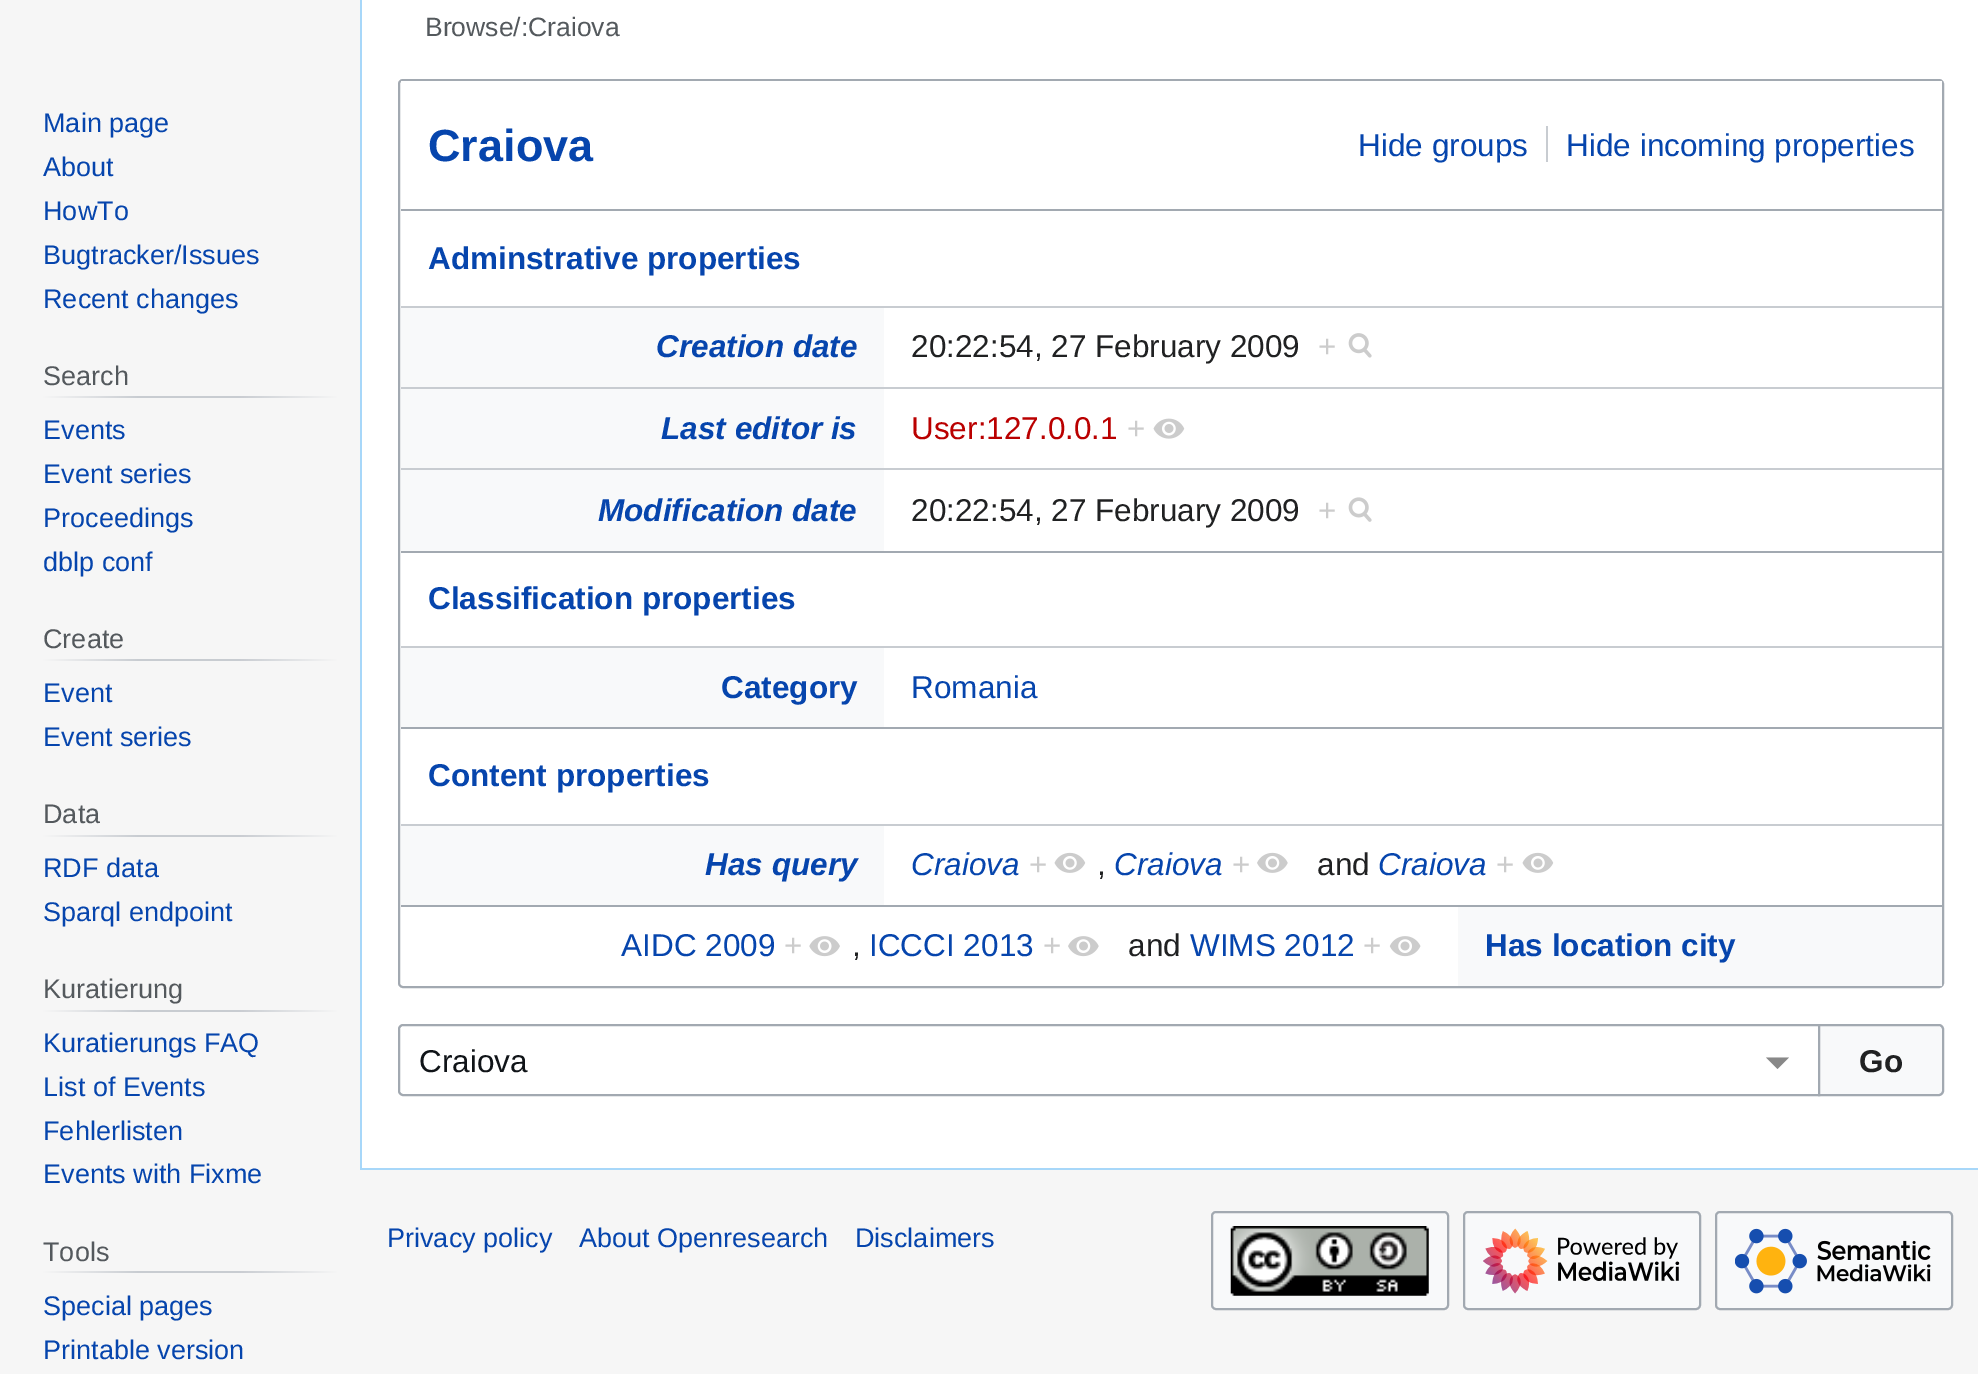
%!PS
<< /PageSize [1978 1374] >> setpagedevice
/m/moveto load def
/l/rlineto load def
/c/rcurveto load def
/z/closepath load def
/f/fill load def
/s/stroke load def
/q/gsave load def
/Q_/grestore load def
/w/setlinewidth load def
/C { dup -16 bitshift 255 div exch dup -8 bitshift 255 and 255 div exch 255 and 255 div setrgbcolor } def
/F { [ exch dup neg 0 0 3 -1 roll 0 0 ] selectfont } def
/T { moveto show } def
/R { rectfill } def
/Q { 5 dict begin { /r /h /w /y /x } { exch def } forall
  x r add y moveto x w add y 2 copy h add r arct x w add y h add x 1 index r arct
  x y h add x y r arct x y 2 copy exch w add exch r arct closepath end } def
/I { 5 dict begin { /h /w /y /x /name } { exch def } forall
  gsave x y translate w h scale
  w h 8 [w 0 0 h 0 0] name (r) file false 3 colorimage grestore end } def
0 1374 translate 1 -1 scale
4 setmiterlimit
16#F6F6F6 C
0 0 1978 1374 R
/LiberationSans-Regular 27 F
16#0645AD C
(Main page) 43 132 T
(About) 43 176 T
(HowTo) 43 220 T
(Bugtracker/Issues) 43 264 T
(Recent changes) 43 308 T
q 43 396 m 295 0 l 0 2 l -295 0 l z clip newpath
<< /ShadingType 2 /ColorSpace /DeviceRGB /Coords [43 397 338 397] /Extend [true true] /Function << /FunctionType 3 /Domain [0 1] /Functions [<< /FunctionType 2 /Domain [0 1] /C0 [.965 .965 .965] /C1 [.784 .8 .82] /N 1 >> << /FunctionType 2 /Domain [0 1] /C0 [.784 .8 .82] /C1 [.784 .8 .82] /N 1 >> << /FunctionType 2 /Domain [0 1] /C0 [.784 .8 .82] /C1 [.965 .965 .965] /N 1 >>] /Bounds [.33 .66] /Encode [0 1 0 1 0 1] >> >> shfill Q_
16#54595D C
(Search) 43 385 T
16#0645AD C
(Events) 43 439 T
(Event series) 43 483 T
(Proceedings) 43 527 T
(dblp conf) 43 571 T
q 43 659 m 295 0 l 0 2 l -295 0 l z clip newpath
<< /ShadingType 2 /ColorSpace /DeviceRGB /Coords [43 660 338 660] /Extend [true true] /Function << /FunctionType 3 /Domain [0 1] /Functions [<< /FunctionType 2 /Domain [0 1] /C0 [.965 .965 .965] /C1 [.784 .8 .82] /N 1 >> << /FunctionType 2 /Domain [0 1] /C0 [.784 .8 .82] /C1 [.784 .8 .82] /N 1 >> << /FunctionType 2 /Domain [0 1] /C0 [.784 .8 .82] /C1 [.965 .965 .965] /N 1 >>] /Bounds [.33 .66] /Encode [0 1 0 1 0 1] >> >> shfill Q_
16#54595D C
(Create) 43 648 T
16#0645AD C
(Event) 43 702 T
(Event series) 43 746 T
q 43 835 m 295 0 l 0 2 l -295 0 l z clip newpath
<< /ShadingType 2 /ColorSpace /DeviceRGB /Coords [43 836 338 836] /Extend [true true] /Function << /FunctionType 3 /Domain [0 1] /Functions [<< /FunctionType 2 /Domain [0 1] /C0 [.965 .965 .965] /C1 [.784 .8 .82] /N 1 >> << /FunctionType 2 /Domain [0 1] /C0 [.784 .8 .82] /C1 [.784 .8 .82] /N 1 >> << /FunctionType 2 /Domain [0 1] /C0 [.784 .8 .82] /C1 [.965 .965 .965] /N 1 >>] /Bounds [.33 .66] /Encode [0 1 0 1 0 1] >> >> shfill Q_
16#54595D C
(Data) 43 823 T
16#0645AD C
(RDF data) 43 877 T
(Sparql endpoint) 43 921 T
q 43 1010 m 295 0 l 0 2 l -295 0 l z clip newpath
<< /ShadingType 2 /ColorSpace /DeviceRGB /Coords [43 1011 338 1011] /Extend [true true] /Function << /FunctionType 3 /Domain [0 1] /Functions [<< /FunctionType 2 /Domain [0 1] /C0 [.965 .965 .965] /C1 [.784 .8 .82] /N 1 >> << /FunctionType 2 /Domain [0 1] /C0 [.784 .8 .82] /C1 [.784 .8 .82] /N 1 >> << /FunctionType 2 /Domain [0 1] /C0 [.784 .8 .82] /C1 [.965 .965 .965] /N 1 >>] /Bounds [.33 .66] /Encode [0 1 0 1 0 1] >> >> shfill Q_
16#54595D C
(Kuratierung) 43 998 T
16#0645AD C
(Kuratierungs FAQ) 43 1052 T
(List of Events) 43 1096 T
(Fehlerlisten) 43 1140 T
(Events with Fixme) 43 1183 T
q 43 1271 m 295 0 l 0 2 l -295 0 l z clip newpath
<< /ShadingType 2 /ColorSpace /DeviceRGB /Coords [43 1272 338 1272] /Extend [true true] /Function << /FunctionType 3 /Domain [0 1] /Functions [<< /FunctionType 2 /Domain [0 1] /C0 [.965 .965 .965] /C1 [.784 .8 .82] /N 1 >> << /FunctionType 2 /Domain [0 1] /C0 [.784 .8 .82] /C1 [.784 .8 .82] /N 1 >> << /FunctionType 2 /Domain [0 1] /C0 [.784 .8 .82] /C1 [.965 .965 .965] /N 1 >>] /Bounds [.33 .66] /Encode [0 1 0 1 0 1] >> >> shfill Q_
16#54595D C
(Tools) 43 1261 T
16#0645AD C
(Special pages) 43 1315 T
(Printable version) 43 1359 T
16#FFFFFF C
362 0 1616 1168 R
16#A7D7F9 C
360 1168 1618 2 R
360 0 2 1170 R
/LiberationSans-Regular 26.5 F
16#54595D C
(Browse/:Craiova) 425 36 T
16#A2A9B1 C
2 w
399 80 1544 907 4 Q s
16#FFFFFF C
401 81 1541 3 R
16#A2A9B1 C
401 209 1541 2 R
/LiberationSans-Bold 45 F
16#0645AD C
(Craiova) 428 161 T
/LiberationSans-Regular 31.5 F
(Hide groups) 1358 156 T
(Hide incoming properties) 1566 156 T
16#C8CCD1 C
1546 126 2 36 R
16#A2A9B1 C
401 551 1541 2 R
/LiberationSans-Bold 31.5 F
16#0645AD C
(Adminstrative properties) 428 269 T
16#C8CCD1 C
401 306 1541 2 R
16#F8F9FA C
401 308 483 79 R
/LiberationSans-BoldItalic 31.5 F
16#0645AD C
(Creation date) 656 357 T
/LiberationSans-Regular 31.5 F
16#202122 C
(20:22:54, 27 February 2009) 911 357 T
16#CCCCCC C
(+) 1318 357 T
(1.rgb) 1348 333 24 25 I
16#C8CCD1 C
401 387 1541 2 R
16#F8F9FA C
401 389 483 79 R
/LiberationSans-BoldItalic 31.5 F
16#0645AD C
(Last editor is) 661 439 T
/LiberationSans-Regular 31.5 F
16#BA0000 C
(User:127.0.0.1) 911 439 T
16#CCCCCC C
(+) 1127 439 T
(2.rgb) 1153 418 32 21 I
16#C8CCD1 C
401 468 1541 2 R
16#F8F9FA C
401 470 483 81 R
/LiberationSans-BoldItalic 31.5 F
16#0645AD C
(Modification date) 598 521 T
/LiberationSans-Regular 31.5 F
16#202122 C
(20:22:54, 27 February 2009) 911 521 T
16#CCCCCC C
(+) 1318 521 T
(3.rgb) 1348 497 24 25 I
16#A2A9B1 C
401 727 1541 2 R
/LiberationSans-Bold 31.5 F
16#0645AD C
(Classification properties) 428 609 T
16#C8CCD1 C
401 646 1541 2 R
16#F8F9FA C
401 648 483 79 R
16#0645AD C
(Category) 721 698 T
/LiberationSans-Regular 31.5 F
(Romania) 911 698 T
16#A2A9B1 C
401 905 1541 2 R
/LiberationSans-Bold 31.5 F
16#0645AD C
(Content properties) 428 786 T
16#C8CCD1 C
401 824 1541 2 R
16#F8F9FA C
401 826 483 79 R
/LiberationSans-BoldItalic 31.5 F
16#0645AD C
(Has query) 705 875 T
/LiberationSans-Italic 31.5 F
(Craiova) 911 875 T
/LiberationSans-Regular 31.5 F
16#CCCCCC C
(+) 1029 875 T
(4.rgb) 1054 852 32 21 I
/LiberationSans-Italic 31.5 F
16#0645AD C
(Craiova) 1114 875 T
/LiberationSans-Regular 31.5 F
16#CCCCCC C
(+) 1232 875 T
(5.rgb) 1257 852 31 21 I
16#202122 C
(and) 1317 875 T
/LiberationSans-Italic 31.5 F
16#0645AD C
(Craiova) 1378 875 T
/LiberationSans-Regular 31.5 F
16#CCCCCC C
(+) 1496 875 T
(4.rgb) 1522 852 32 21 I
16#202122 C
(,) 1097 875 T
16#0645AD C
(AIDC 2009) 621 956 T
16#CCCCCC C
(+) 784 956 T
(6.rgb) 809 936 31 21 I
16#0645AD C
(ICCCI 2013) 869 956 T
16#CCCCCC C
(+) 1043 956 T
(7.rgb) 1068 936 31 21 I
16#202122 C
(and) 1128 956 T
16#0645AD C
(WIMS 2012) 1190 956 T
16#CCCCCC C
(+) 1363 956 T
(8.rgb) 1389 936 32 21 I
16#202122 C
(,) 852 956 T
16#F8F9FA C
1458 907 484 79 R
/LiberationSans-Bold 31.5 F
16#0645AD C
(Has location city) 1485 956 T
16#888888 C
1766 1057.5 m 11.5 11.5 l 11.5 -11.5 l z f
16#A2A9B1 C
403 1025 m 1416 0 l 0 70 l -1416 0 l -2 0 -4 -2 -4 -4 c 0 -62 l 0 -2 2 -4 4 -4 c z s
/LiberationSans-Regular 31.5 F
16#101418 C
(Craiova) 419 1072 T
16#F8F9FA C
1819 1025 m 120 0 l 2 0 4 2 4 4 c 0 62 l 0 2 -2 4 -4 4 c -120 0 l z q f Q_
16#A2A9B1 C
s
/LiberationSans-Bold 31.5 F
16#202122 C
(Go) 1859 1072 T
/LiberationSans-Regular 27 F
16#0645AD C
(Privacy policy) 387 1247 T
(About Openresearch) 579 1247 T
(Disclaimers) 855 1247 T
16#F8F9FA C
1212 1212 236 97 4 Q q f Q_
16#A2A9B1 C
s
(9.rgb) 1230 1226 199 70 I
16#F8F9FA C
1464 1212 236 97 4 Q q f Q_
16#A2A9B1 C
s
(10.rgb) 1483 1228 197 66 I
16#F8F9FA C
1716 1212 236 97 4 Q q f Q_
16#A2A9B1 C
s
(11.rgb) 1735 1228 196 66 I
showpage
